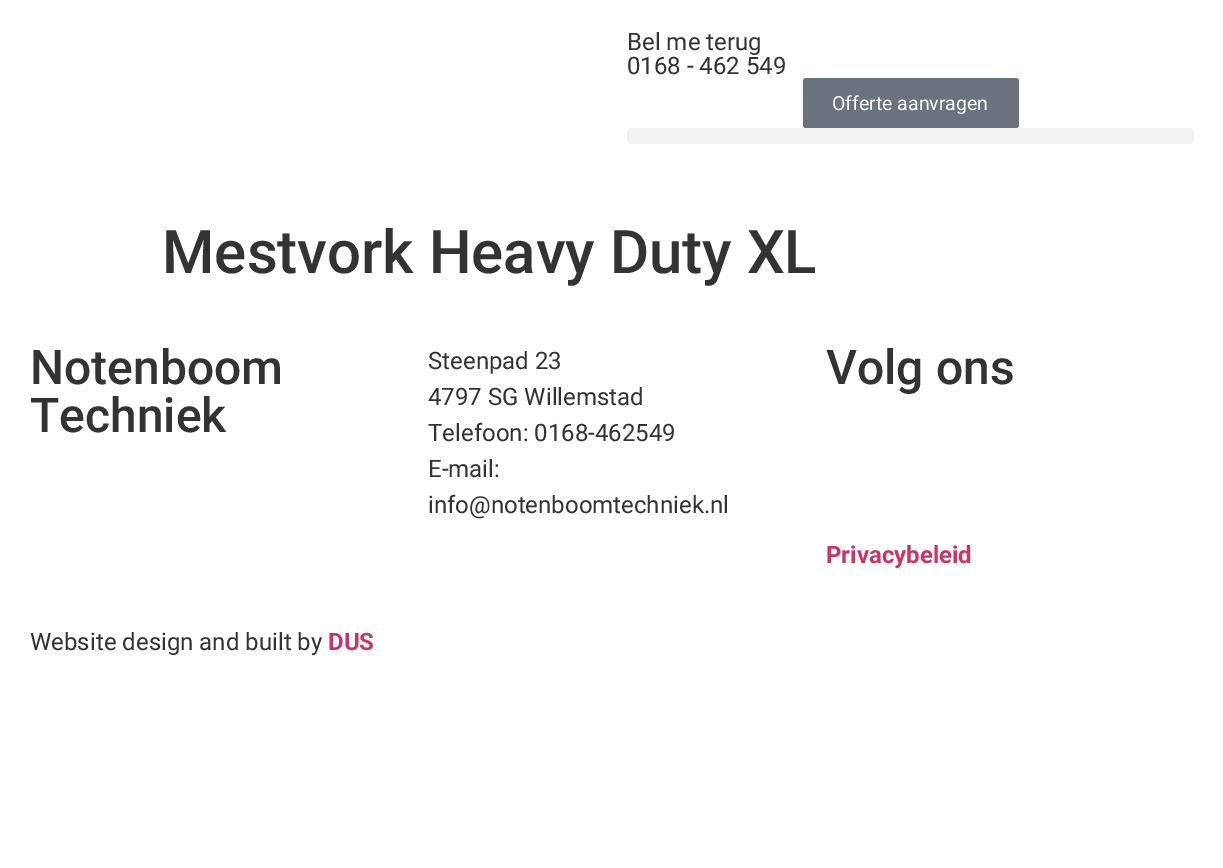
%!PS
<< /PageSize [1223 868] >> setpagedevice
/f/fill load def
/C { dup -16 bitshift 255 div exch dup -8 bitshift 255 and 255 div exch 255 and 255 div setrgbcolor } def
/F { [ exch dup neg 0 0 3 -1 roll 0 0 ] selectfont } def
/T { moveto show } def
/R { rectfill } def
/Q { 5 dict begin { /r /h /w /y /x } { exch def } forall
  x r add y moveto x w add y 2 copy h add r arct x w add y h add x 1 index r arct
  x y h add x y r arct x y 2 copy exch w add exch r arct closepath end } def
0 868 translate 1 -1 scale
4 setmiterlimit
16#FFFFFF C
0 0 1223 868 R
/Roboto-Regular 24 F
16#333333 C
(Bel me terug) 627 50 T
(0168 - 462 549) 627 74 T
16#69727D C
803 78 216 50 3 Q f
/Roboto-Regular 19.5 F
16#FFFFFF C
(Offerte aanvragen) 832 110 T
16#F2F2F2 C
627 128 567 16 5 Q f
/Roboto-Medium 60 F
16#333333 C
(Mestvork Heavy Duty XL) 162 273 T
/Roboto-Medium 48 F
(Notenboom) 30 384 T
(Techniek) 30 432 T
/Roboto-Regular 24 F
(Steenpad 23) 428 369 T
(4797 SG Willemstad) 428 405 T
(Telefoon: 0168-462549) 428 441 T
(E-mail:) 428 477 T
(info@notenboomtechniek.nl) 428 513 T
/Roboto-Medium 48 F
(Volg ons) 826 384 T
/Roboto-Bold 24 F
16#CC3366 C
(Privacybeleid) 826 563 T
/Roboto-Regular 24 F
16#333333 C
(Website design and built by) 30 650 T
/Roboto-Bold 24 F
16#CC3366 C
(DUS) 328 650 T
showpage
